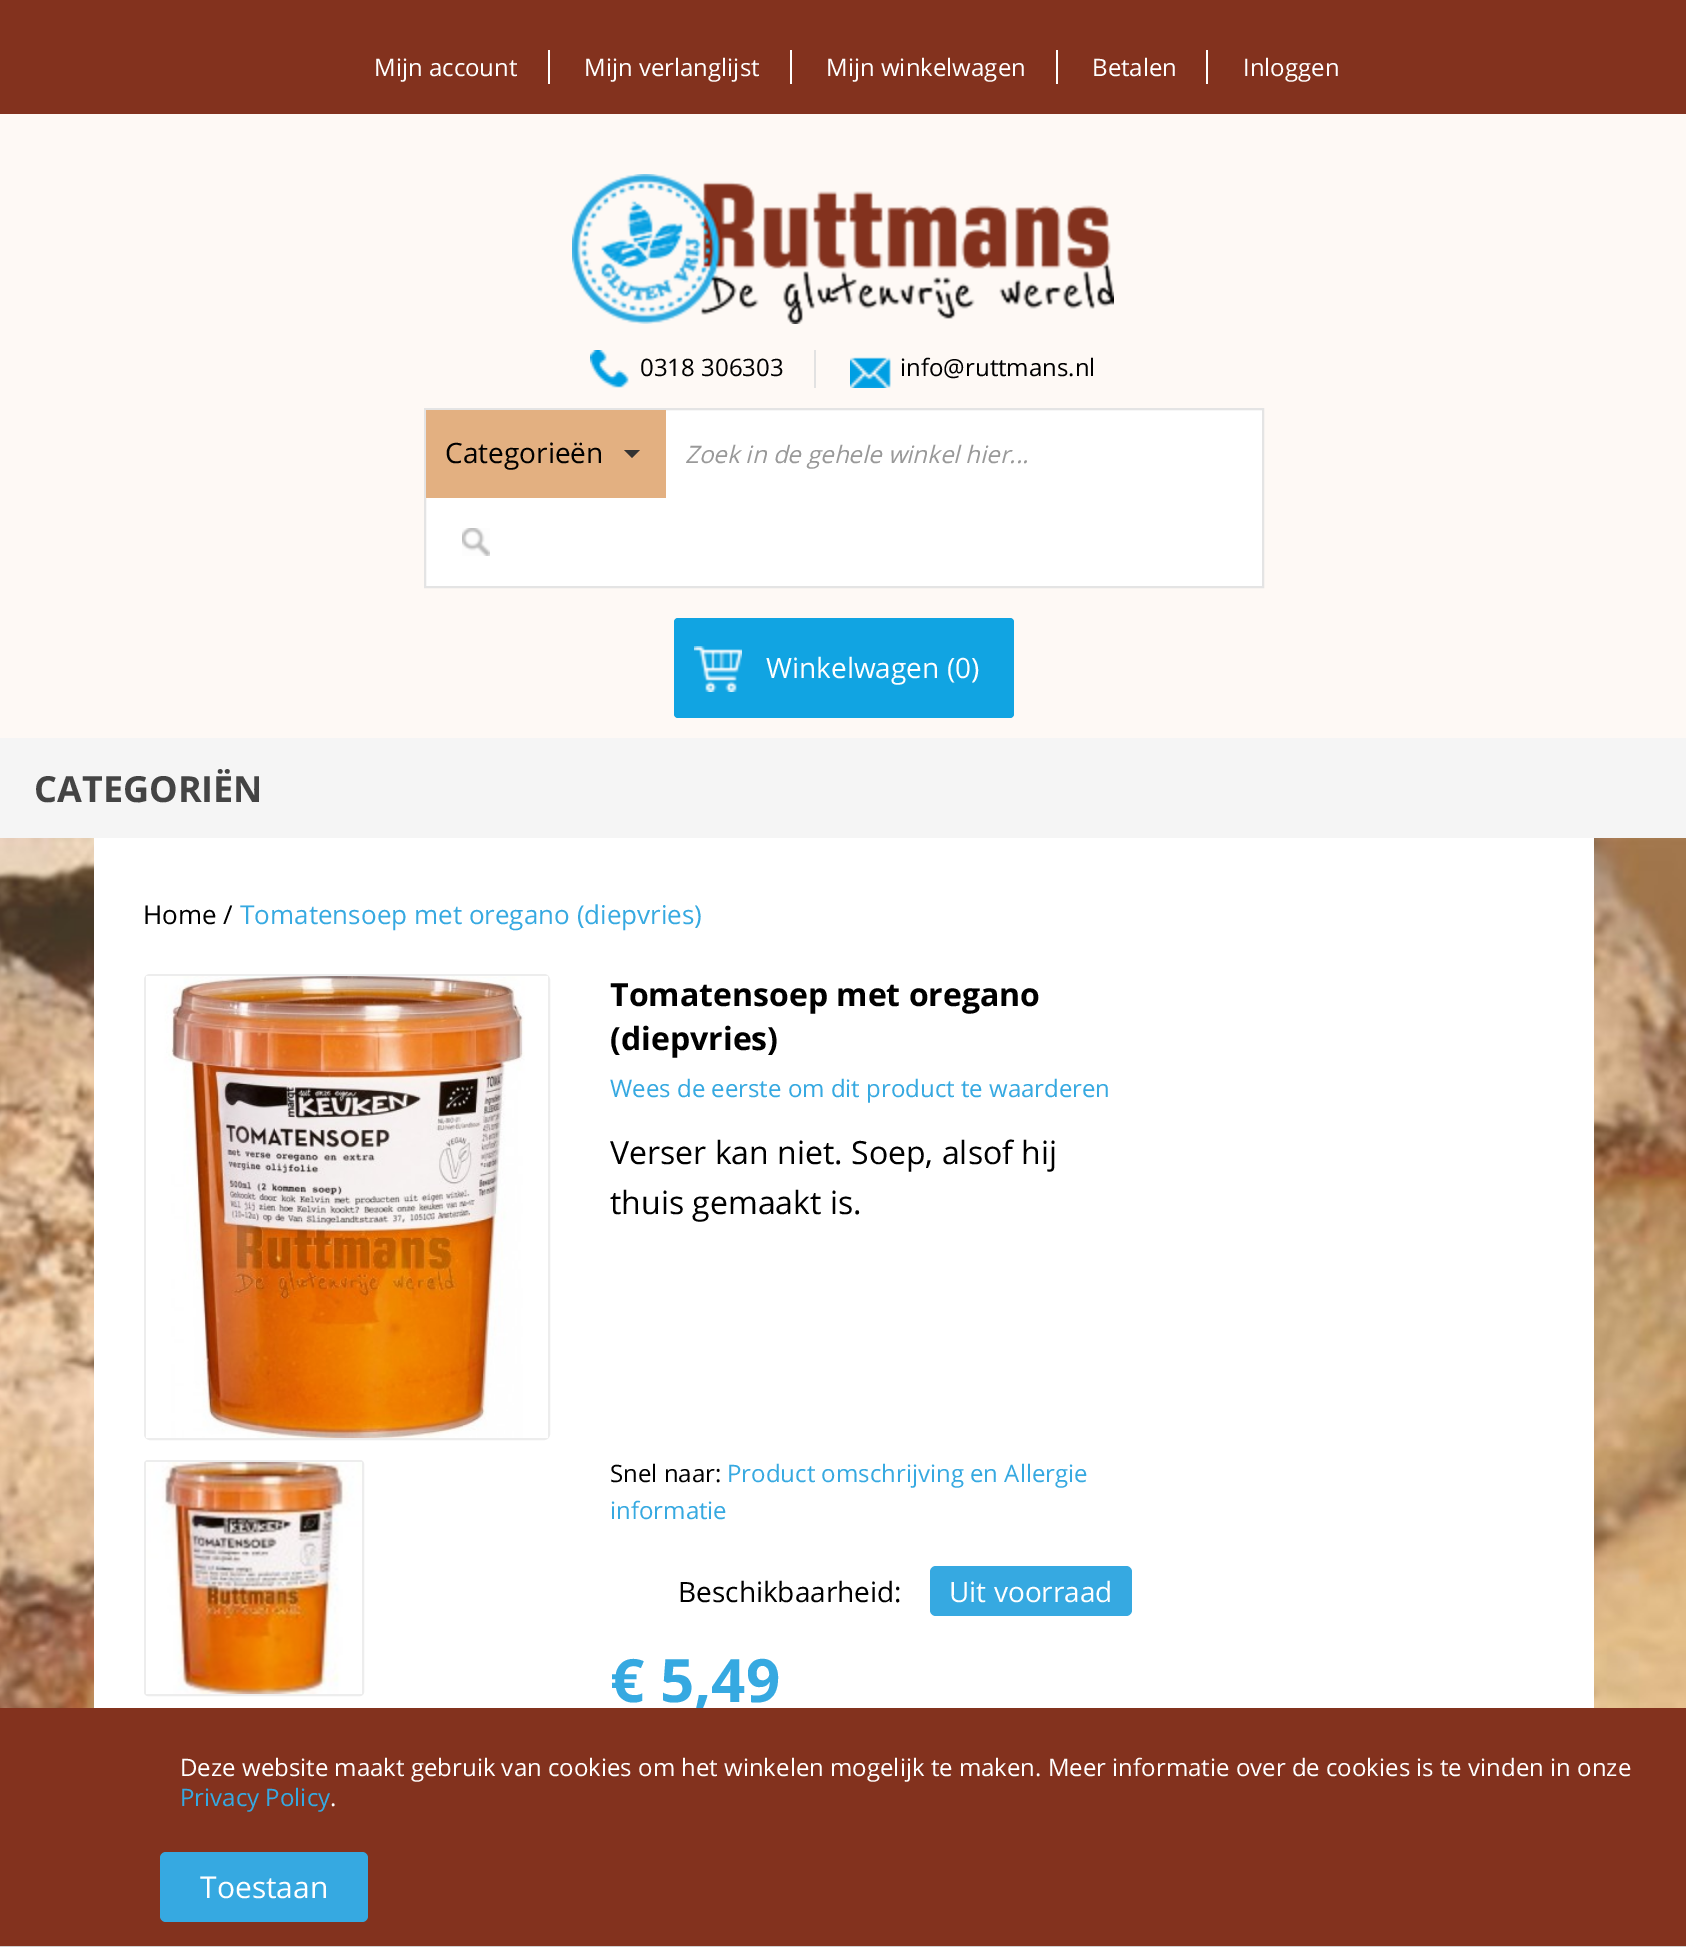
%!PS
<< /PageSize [1686 1947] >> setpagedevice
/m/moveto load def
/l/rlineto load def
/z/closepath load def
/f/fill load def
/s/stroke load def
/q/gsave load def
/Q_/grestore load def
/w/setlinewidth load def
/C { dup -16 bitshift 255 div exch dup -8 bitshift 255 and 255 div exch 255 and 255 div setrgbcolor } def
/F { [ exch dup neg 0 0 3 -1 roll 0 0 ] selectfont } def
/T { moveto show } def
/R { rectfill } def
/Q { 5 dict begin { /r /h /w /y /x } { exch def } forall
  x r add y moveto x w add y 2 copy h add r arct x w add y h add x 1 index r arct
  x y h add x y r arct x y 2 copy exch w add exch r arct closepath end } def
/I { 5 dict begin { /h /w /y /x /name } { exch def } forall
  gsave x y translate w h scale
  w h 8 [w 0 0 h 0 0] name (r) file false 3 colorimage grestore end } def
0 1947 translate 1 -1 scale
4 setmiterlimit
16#83321E C
0 0 1686 1947 R
/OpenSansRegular-Regular 24 F
16#FFFFFF C
(Mijn account) 374 76 T
548 50 2 34 R
(Mijn verlanglijst) 584 76 T
790 50 2 34 R
(Mijn winkelwagen) 826 76 T
1056 50 2 34 R
(Betalen) 1092 76 T
1206 50 2 34 R
(Inloggen) 1243 76 T
16#FEF9F5 C
0 114 1686 624 R
(1.rgb) 572 174 542 150 I
(2.rgb) 590 350 39 38 I
16#E2E2E2 C
814 350 2 38 R
16#000000 C
(0318 306303) 640 376 T
(3.rgb) 850 357 41 31 I
(info@ruttmans.nl) 900 376 T
16#FFFFFF C
425 409 m 838 0 l 0 178 l -838 0 l z q f Q_
16#E4E4E4 C
2 w
s
16#E3B081 C
426 410 240 88 R
/OpenSansRegular-Regular 28 F
16#000000 C
(Categorieën) 445 463 T
16#333333 C
624 450 m 16 0 l -8 8 l z f
/OpenSansRegular-Italic 24 F
16#999999 C
(Zoek in de gehele winkel hier...) 685 463 T
(4.rgb) 462 528 28 28 I
16#11A4E2 C
674 618 340 100 4 Q f
(5.rgb) 694 646 48 46 I
/OpenSansRegular-Regular 28 F
16#FFFFFF C
(Winkelwagen \(0\)) 766 678 T
16#F5F5F5 C
0 738 1686 100 R
/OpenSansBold-Bold 36 F
16#444444 C
(CATEGORIËN) 34 802 T
(6.rgb) 0 838 1686 870 I
16#FFFFFF C
94 838 1500 870 R
/OpenSansRegular-Regular 26 F
16#000000 C
(Home /) 143 924 T
16#36A9E1 C
(Tomatensoep met oregano \(diepvries\)) 240 924 T
16#EDEDED C
145 975 404 464 5 Q s
(7.rgb) 146 976 402 462 I
145 1461 218 234 3 Q s
(8.rgb) 146 1462 216 232 I
/OpenSansBold-Bold 32 F
16#000000 C
(Tomatensoep met oregano) 610 1006 T
(\(diepvries\)) 610 1050 T
/OpenSansRegular-Regular 24 F
16#36A9E1 C
(Wees de eerste om dit product te waarderen) 610 1097 T
/OpenSansRegular-Regular 32 F
16#000000 C
(Verser kan niet. Soep, alsof hij) 610 1164 T
(thuis gemaakt is.) 610 1214 T
/OpenSansRegular-Regular 24 F
(Snel naar:) 610 1482 T
16#36A9E1 C
(Product omschrijving en Allergie) 727 1482 T
(informatie) 610 1519 T
/OpenSansRegular-Regular 28 F
16#000000 C
(Beschikbaarheid:) 678 1602 T
16#36A9E1 C
930 1566 202 50 6 Q f
16#FFFFFF C
(Uit voorraad) 949 1602 T
/OpenSansBold-Bold 60 F
16#36A9E1 C
(€ 5,49) 610 1702 T
16#83321E C
695 1708 8 2 R
16#CFCFCF C
0 1946 1686 1 R
/OpenSansRegular-Regular 24 F
16#FFFFFF C
(Deze website maakt gebruik van cookies om het winkelen mogelijk te maken. Meer informatie over de cookies is te vinden in onze) 180 1776 T
16#36A9E1 C
(Privacy Policy) 180 1806 T
16#FFFFFF C
(.) 330 1806 T
16#36A9E1 C
160 1852 208 70 6 Q f
/OpenSansRegular-Regular 30 F
16#FFFFFF C
(Toestaan) 200 1898 T
showpage
